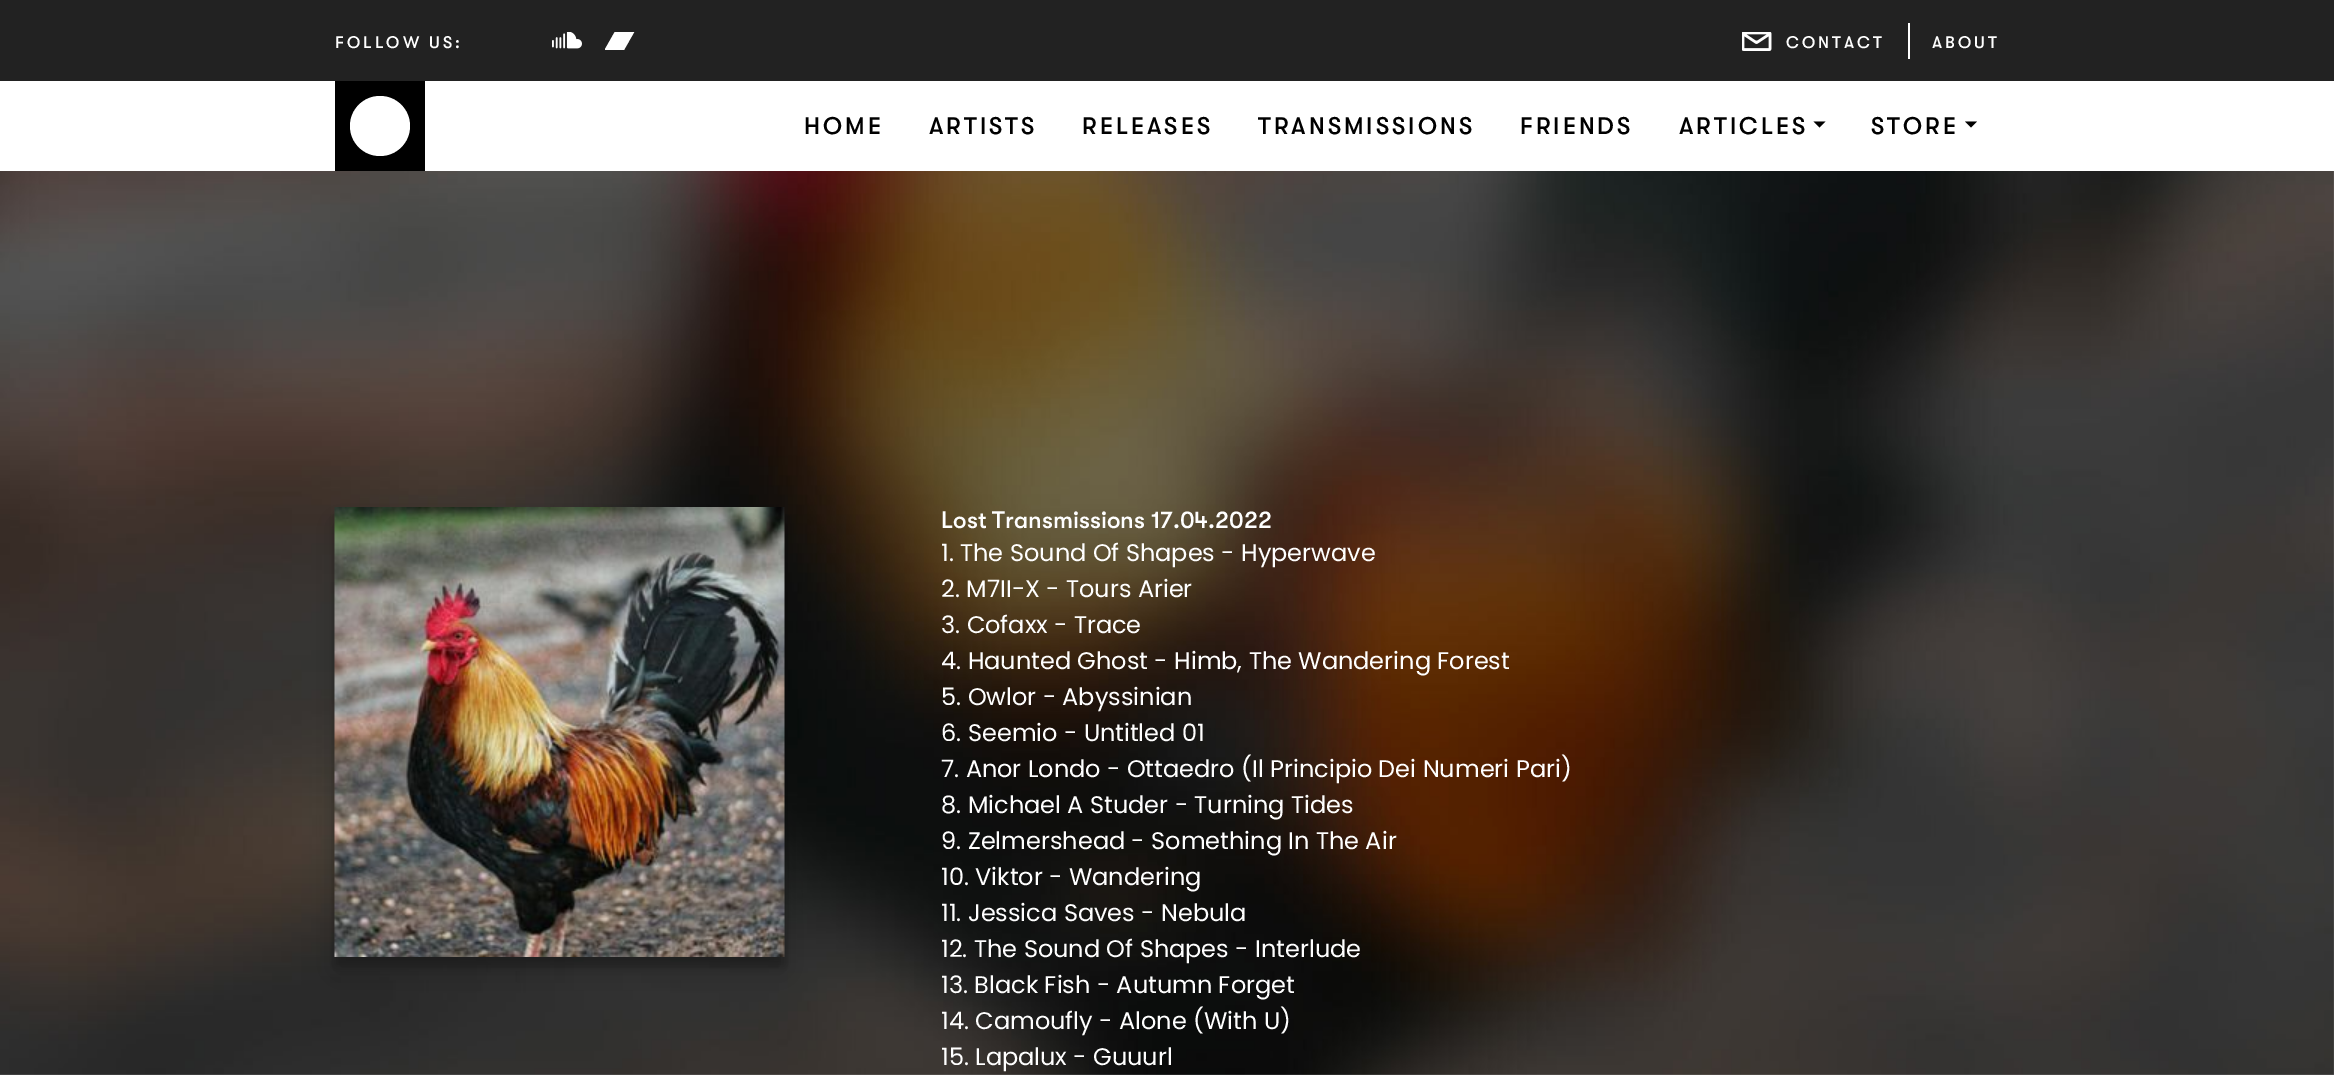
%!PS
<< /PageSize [2334 1075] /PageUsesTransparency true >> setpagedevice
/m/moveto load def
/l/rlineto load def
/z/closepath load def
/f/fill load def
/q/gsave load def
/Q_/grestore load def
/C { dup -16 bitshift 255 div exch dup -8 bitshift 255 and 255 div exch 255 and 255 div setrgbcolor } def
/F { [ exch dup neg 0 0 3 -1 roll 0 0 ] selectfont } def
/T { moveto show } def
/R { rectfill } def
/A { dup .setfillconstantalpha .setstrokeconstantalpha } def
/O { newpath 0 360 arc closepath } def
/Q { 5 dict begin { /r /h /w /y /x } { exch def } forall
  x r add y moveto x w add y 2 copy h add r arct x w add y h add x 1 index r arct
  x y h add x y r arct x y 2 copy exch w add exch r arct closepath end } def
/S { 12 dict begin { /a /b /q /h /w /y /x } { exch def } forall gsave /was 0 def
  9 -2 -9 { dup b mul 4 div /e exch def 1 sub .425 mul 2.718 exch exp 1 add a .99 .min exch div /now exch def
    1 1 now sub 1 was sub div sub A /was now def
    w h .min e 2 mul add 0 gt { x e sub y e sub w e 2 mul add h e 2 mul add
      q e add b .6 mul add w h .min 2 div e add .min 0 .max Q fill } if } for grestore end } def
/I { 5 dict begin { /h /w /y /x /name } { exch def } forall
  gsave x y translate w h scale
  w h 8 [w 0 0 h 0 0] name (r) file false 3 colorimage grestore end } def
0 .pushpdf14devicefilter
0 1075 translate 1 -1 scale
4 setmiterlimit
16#FFFFFF C
0 0 2334 1075 R
16#222222 C
0 0 2334 81 R
/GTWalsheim-Medium 16.75 F
16#FFFFFF C
335 48 m 3 0 (FOLLOW US:) ashow
(1.rgb) 552 32 30 17 I
q
605 32 30 18 rectclip
615 31.5 m -10.5 18.5 l 19.5 0 l 10.5 -18.5 l z f
Q_
1908 23 2 36 R
(2.rgb) 1742 32 30 19 I
1786 48 m 3 0 (CONTACT) ashow
1932 48 m 3 0 (ABOUT) ashow
16#000000 C
335 81 90 90 R
16#FFFFFF C
380 126 30 O f
/GTWalsheim-Medium 24 F
16#000000 C
804 134 m 3 0 (HOME) ashow
929 134 m 3 0 (ARTISTS) ashow
1082 134 m 3 0 (RELEASES) ashow
1258 134 m 3 0 (TRANSMISSIONS) ashow
1520 134 m 3 0 (FRIENDS) ashow
1679 134 m 3 0 (ARTICLES) ashow
1813.5 121.5 m 12 0 l -6 6 l z f
1871 134 m 3 0 (STORE) ashow
1965 121.5 m 12 0 l -6 6 l z f
(3.rgb) 0 171 2334 904 I
335 516 450 450 0 4.5 .23 S
335 522 450 450 0 15 .19 S
(4.rgb) 334 507 451 450 I
16#FFFFFF C
(Lost Transmissions 17.04.2022) 941 528 T
/Poppins-Regular 24 F
(1. The Sound Of Shapes - Hyperwave) 941 561 T
(2. M7II-X - Tours Arier) 941 597 T
(3. Cofaxx - Trace) 941 633 T
(4. Haunted Ghost - Himb, The Wandering Forest) 941 669 T
(5. Owlor - Abyssinian) 941 705 T
(6. Seemio - Untitled 01) 941 741 T
(7. Anor Londo - Ottaedro \(Il Principio Dei Numeri Pari\)) 941 777 T
(8. Michael A Studer - Turning Tides) 941 813 T
(9. Zelmershead - Something In The Air) 941 849 T
(10. Viktor - Wandering) 941 885 T
(11. Jessica Saves - Nebula) 941 921 T
(12. The Sound Of Shapes - Interlude) 941 957 T
(13. Black Fish - Autumn Forget) 941 993 T
(14. Camoufly - Alone \(With U\)) 941 1029 T
(15. Lapalux - Guuurl) 941 1065 T
.poppdf14devicefilter showpage
